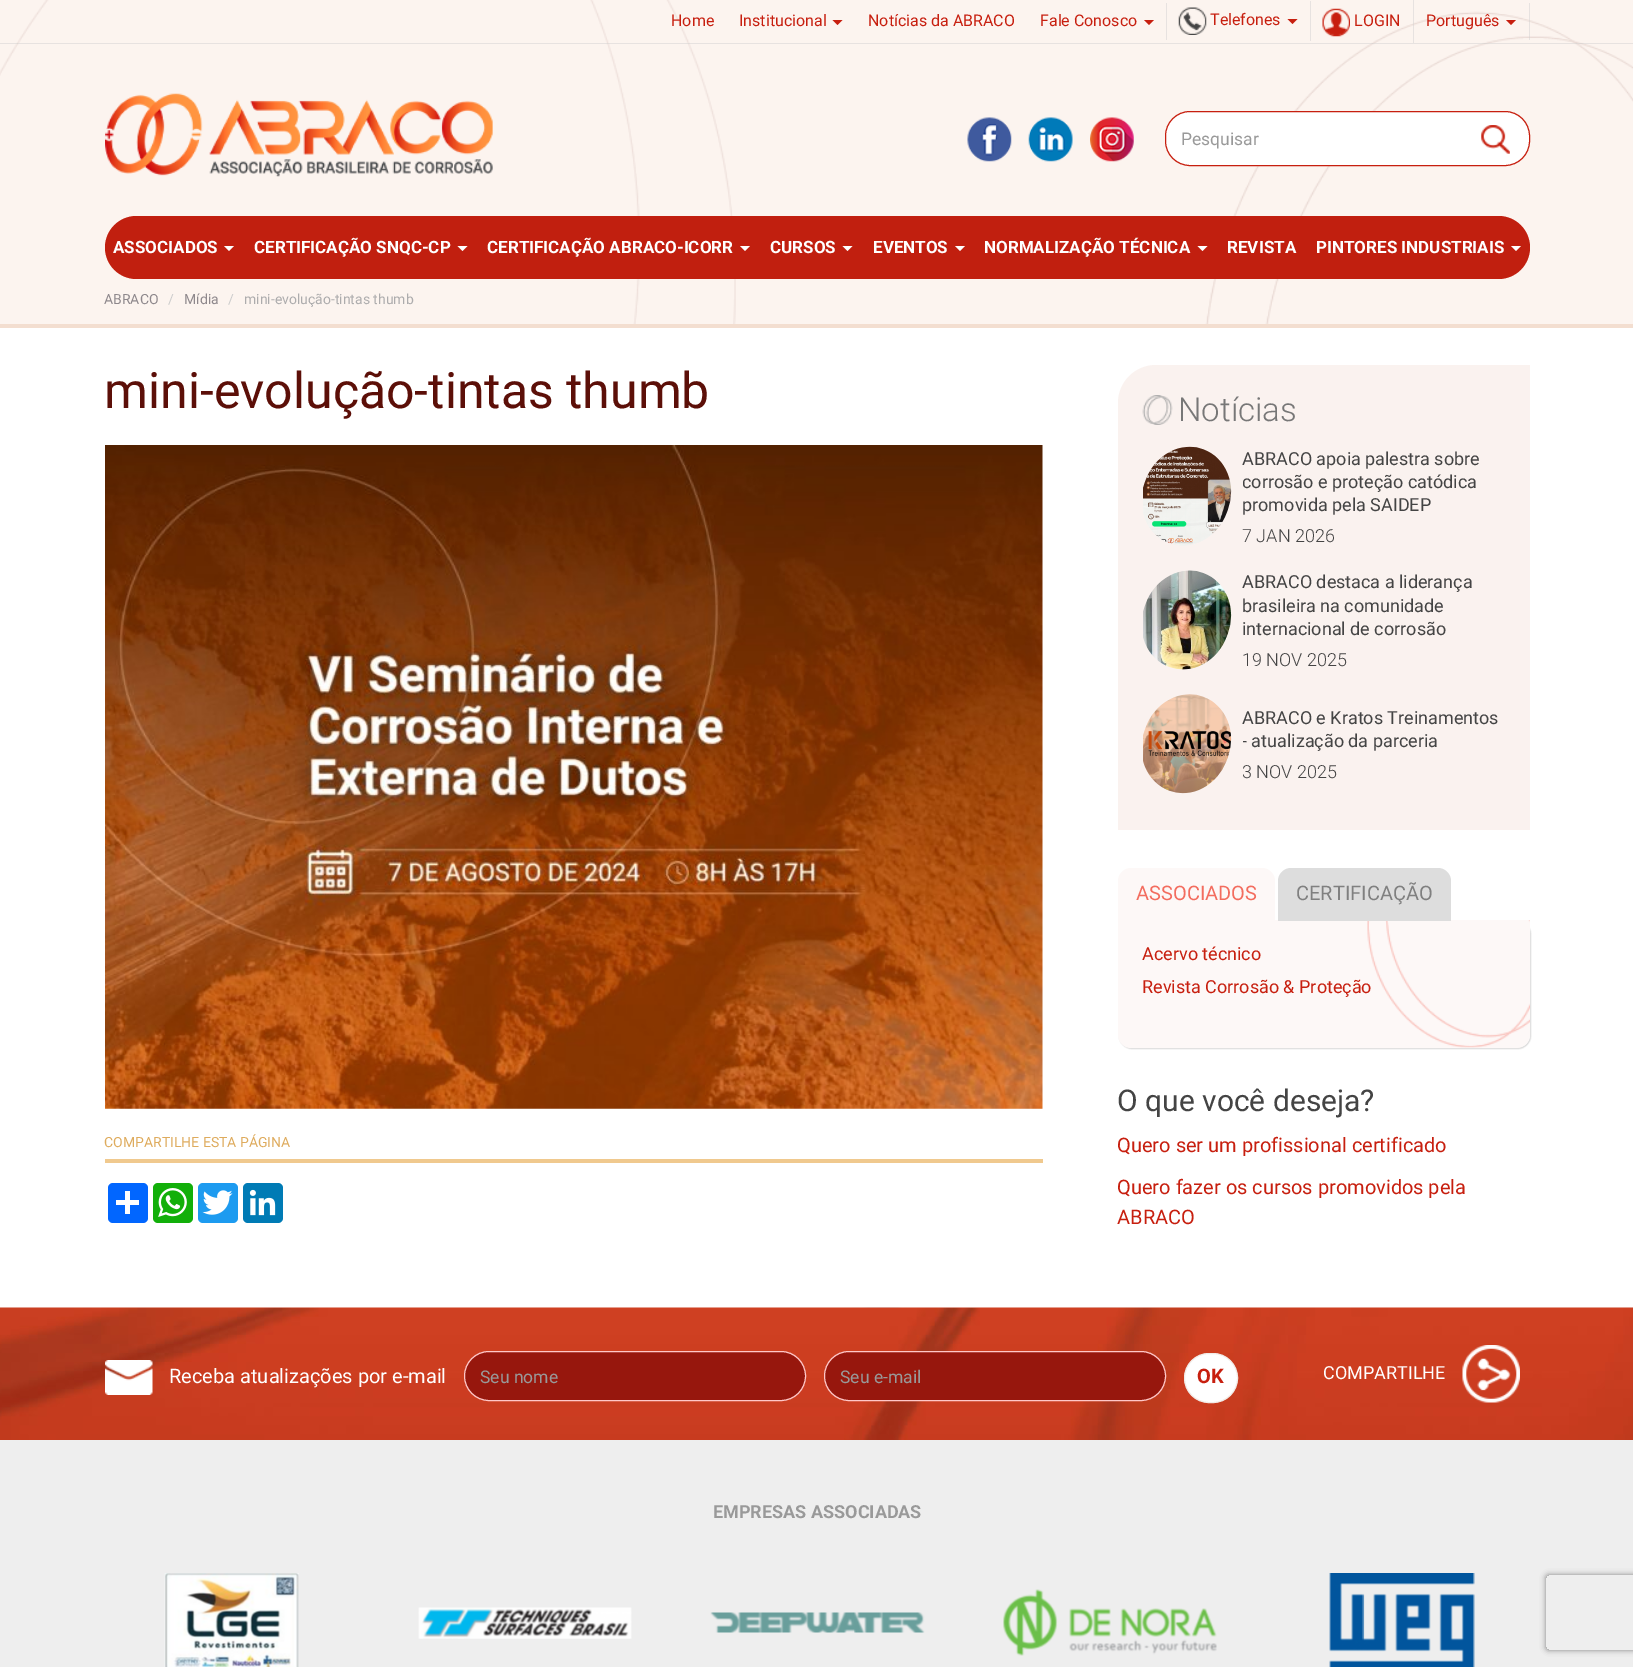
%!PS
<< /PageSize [1633 1667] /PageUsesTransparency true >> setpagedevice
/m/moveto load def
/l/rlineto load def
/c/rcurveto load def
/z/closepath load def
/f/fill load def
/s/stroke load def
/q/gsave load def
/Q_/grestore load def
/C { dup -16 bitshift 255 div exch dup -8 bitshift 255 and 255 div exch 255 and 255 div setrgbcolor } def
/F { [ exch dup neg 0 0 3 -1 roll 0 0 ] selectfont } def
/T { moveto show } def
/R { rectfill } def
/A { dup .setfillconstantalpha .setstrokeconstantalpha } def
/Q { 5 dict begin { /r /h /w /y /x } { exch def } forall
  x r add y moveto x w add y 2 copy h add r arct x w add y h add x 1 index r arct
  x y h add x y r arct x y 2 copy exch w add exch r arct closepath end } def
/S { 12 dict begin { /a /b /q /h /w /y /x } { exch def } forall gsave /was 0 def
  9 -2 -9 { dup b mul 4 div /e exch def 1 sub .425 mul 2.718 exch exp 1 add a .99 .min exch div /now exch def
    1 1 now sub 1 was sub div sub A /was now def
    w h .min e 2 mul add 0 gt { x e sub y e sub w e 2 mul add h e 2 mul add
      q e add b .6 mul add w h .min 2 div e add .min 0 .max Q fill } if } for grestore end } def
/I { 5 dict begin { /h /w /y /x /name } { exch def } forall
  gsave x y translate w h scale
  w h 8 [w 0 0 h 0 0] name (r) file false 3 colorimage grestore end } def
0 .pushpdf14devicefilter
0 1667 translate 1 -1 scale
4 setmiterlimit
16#FFFFFF C
0 0 1633 1667 R
16#FCF4EF C
0 0 1633 324 R
(1.rgb) 0 0 1633 324 I
16#F3DED0 C
0 324 1633 4 R
0.44 A
16#CCCCCC C
0 43 1633 1 R
1 A
16#E7E2E0 C
1166 3 1 37 R
/Roboto-Regular 16 F
16#C71F0F C
(Home) 671 26 T
(Institucional) 739 26 T
832.5 20 m 10 0 l -5 5 l z f
(Notícias da ABRACO) 868 26 T
(Fale Conosco) 1040 26 T
1144 20 m 10 0 l -5 5 l z f
16#E7E2E0 C
1310 1 1 40 R
(2.rgb) 1178 7 29 28 I
16#C71F0F C
(Telefones) 1210 25 T
1287.5 19 m 10 0 l -5 5 l z f
0.44 A
16#CCCCCC C
1413 0 1 43 R
1 A
(3.rgb) 1322 8 28 29 I
16#C71F0F C
(LOGIN) 1354 26 T
0.44 A
16#CCCCCC C
1529 3 1 37 R
1 A
16#C71F0F C
(Português) 1426 26 T
1506 20 m 10 0 l -5 5 l z f
(4.rgb) 105 93 388 84 I
(5.rgb) 967 117 45 45 I
(6.rgb) 1028 117 45 45 I
(7.rgb) 1090 117 44 45 I
16#FFFFFF C
1165.5 111.5 364 54 24.5 Q q f Q_
16#C71F0F C
s
/Roboto-Regular 17.5 F
16#999999 C
(Pesquisar) 1181 145 T
(8.rgb) 1481 125 29 29 I
16#C11F0F C
105 216 1425 63 31.5 Q f
/Roboto-Bold 17 F
16#FFFFFF C
(ASSOCIADOS) 113 253 T
224 246 m 10 0 l -5 5 l z f
(CERTIFICAÇÃO SNQC-CP) 254 253 T
457.5 246 m 10 0 l -5 5 l z f
(CERTIFICAÇÃO ABRACO-ICORR) 487 253 T
740 246 m 10 0 l -5 5 l z f
(CURSOS) 770 253 T
842.5 246 m 10 0 l -5 5 l z f
(EVENTOS) 873 253 T
955 246 m 10 0 l -5 5 l z f
(NORMALIZAÇÃO TÉCNICA) 984 253 T
1197.5 246 m 10 0 l -5 5 l z f
(REVISTA) 1227 253 T
(PINTORES INDUSTRIAIS) 1316 253 T
1511 246 m 10 0 l -5 5 l z f
/Roboto-Regular 14 F
16#8E888C C
(ABRACO) 104 304 T
16#CCCCCC C
(/) 168 304 T
16#8E888C C
(Mídia) 184 304 T
16#CCCCCC C
(/) 228 304 T
16#ADACAD C
(mini-evolução-tintas thumb) 244 304 T
/Roboto-Regular 50 F
16#5C0F08 C
(mini-evolução-tintas thumb) 104 408 T
(9.rgb) 105 445 938 664 I
16#F0C98E C
105 1159 938 4 R
/Roboto-Regular 14 F
16#DEAB5D C
(COMPARTILHE ESTA PÁGINA) 104 1147 T
16#0166FF C
108 1183 40 40 5 Q f
16#FFFFFF C
125 1191 5 23 R
116 1200 23 5 R
16#12AF0A C
153 1183 40 40 5 Q f
(10.rgb) 158 1188 29 29 I
16#1D9BF0 C
198 1183 40 40 5 Q f
(11.rgb) 202 1190 31 25 I
16#007BB5 C
243 1183 40 40 5 Q f
(12.rgb) 249 1189 27 27 I
16#FAF2EF C
1156 365 m 374 0 l 0 465 l -412 0 l 0 -427 l 0 -21 17 -38 38 -38 c z f
(13.rgb) 1142 395 31 30 I
/Roboto-Light 33 F
16#777777 C
(Notícias) 1178 421 T
(14.rgb) 1143 446 89 100 I
/Roboto-Regular 18 F
16#444444 C
(ABRACO apoia palestra sobre) 1242 465 T
q
1243 446 262 105 rectclip
(corrosão e proteção catódica) 1242 488 T
Q_
(promovida pela SAIDEP) 1242 511 T
/Roboto-Light 18 F
(7 JAN 2026) 1242 542 T
(15.rgb) 1143 570 89 100 I
/Roboto-Regular 18 F
(ABRACO destaca a liderança) 1242 588 T
(brasileira na comunidade) 1242 612 T
(internacional de corrosão) 1242 635 T
/Roboto-Light 18 F
(19 NOV 2025) 1242 666 T
(16.rgb) 1143 694 89 100 I
/Roboto-Regular 18 F
(ABRACO e Kratos Treinamentos) 1242 724 T
q
1243 694 262 105 rectclip
(- atualização da parceria) 1242 747 T
Q_
/Roboto-Light 18 F
(3 NOV 2025) 1242 778 T
16#999999 C
1119 921 412 128 13 .5 .35 S
16#FDF8F7 C
1118 920 m 412 0 l 0 115 l 0 7 -6 13 -13 13 c -386 0 l -7 0 -13 -6 -13 -13 c z f
1131 868 m 131 0 l 7 0 13 6 13 13 c 0 40 l -157 0 l 0 -40 l 0 -7 6 -13 13 -13 c z f
/Roboto-Regular 20 F
16#F36D5F C
(ASSOCIADOS) 1136 900 T
(17.rgb) 1367 920 163 128 I
16#DDDDDD C
1291 868 m 147 0 l 7 0 13 6 13 13 c 0 40 l -173 0 l 0 -40 l 0 -7 6 -13 13 -13 c z f
16#808080 C
(CERTIFICAÇÃO) 1296 900 T
/Roboto-Regular 18 F
16#C71F0F C
(Acervo técnico) 1142 960 T
(Revista Corrosão & Proteção) 1142 993 T
/Roboto-Regular 30 F
16#444444 C
(O que você deseja?) 1117 1111 T
/Roboto-Regular 20 F
16#C71F0F C
(Quero ser um profissional certificado) 1117 1152 T
(Quero fazer os cursos promovidos pela) 1117 1194 T
(ABRACO) 1117 1224 T
(18.rgb) 0 1307 1633 133 I
(19.rgb) 105 1360 48 35 I
16#FFFFFF C
(Receba atualizações por e-mail) 169 1383 T
16#97170D C
464.5 1351.5 341 49 24.5 Q q f Q_
16#FFC7C7 C
s
/Roboto-Regular 17.5 F
16#999999 C
(Seu nome) 480 1383 T
16#97170D C
824.5 1351.5 341 49 24.5 Q q f Q_
16#FFC7C7 C
s
16#999999 C
(Seu e-mail) 840 1383 T
16#FFFFFF C
1184.5 1353.5 53 49 24.5 Q q f Q_
16#F1EBE7 C
s
/Roboto-Bold 20 F
16#C71F0F C
(OK) 1197 1383 T
/Roboto-Regular 18 F
16#FFFFFF C
(COMPARTILHE) 1323 1379 T
(20.rgb) 1462 1345 58 58 I
16#EEEEEE C
0 1440 1633 227 R
/Roboto-Bold 18 F
16#999999 C
(EMPRESAS ASSOCIADAS) 713 1518 T
(21.rgb) 164 1573 135 94 I
(22.rgb) 418 1607 214 32 I
(23.rgb) 710 1612 215 21 I
(24.rgb) 1003 1589 214 67 I
(25.rgb) 1329 1573 146 94 I
q
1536 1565 m 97 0 l 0 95 l -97 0 l z 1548.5 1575 m 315 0 l 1.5 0 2.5 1 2.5 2.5 c 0 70 l 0 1.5 -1 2.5 -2.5 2.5 c -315 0 l -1.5 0 -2.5 -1 -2.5 -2.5 c 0 -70 l 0 -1.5 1 -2.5 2.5 -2.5 c z eoclip newpath
16#808080 C
1546 1575 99 75 2.5 3 1 S
Q_
.poppdf14devicefilter showpage
